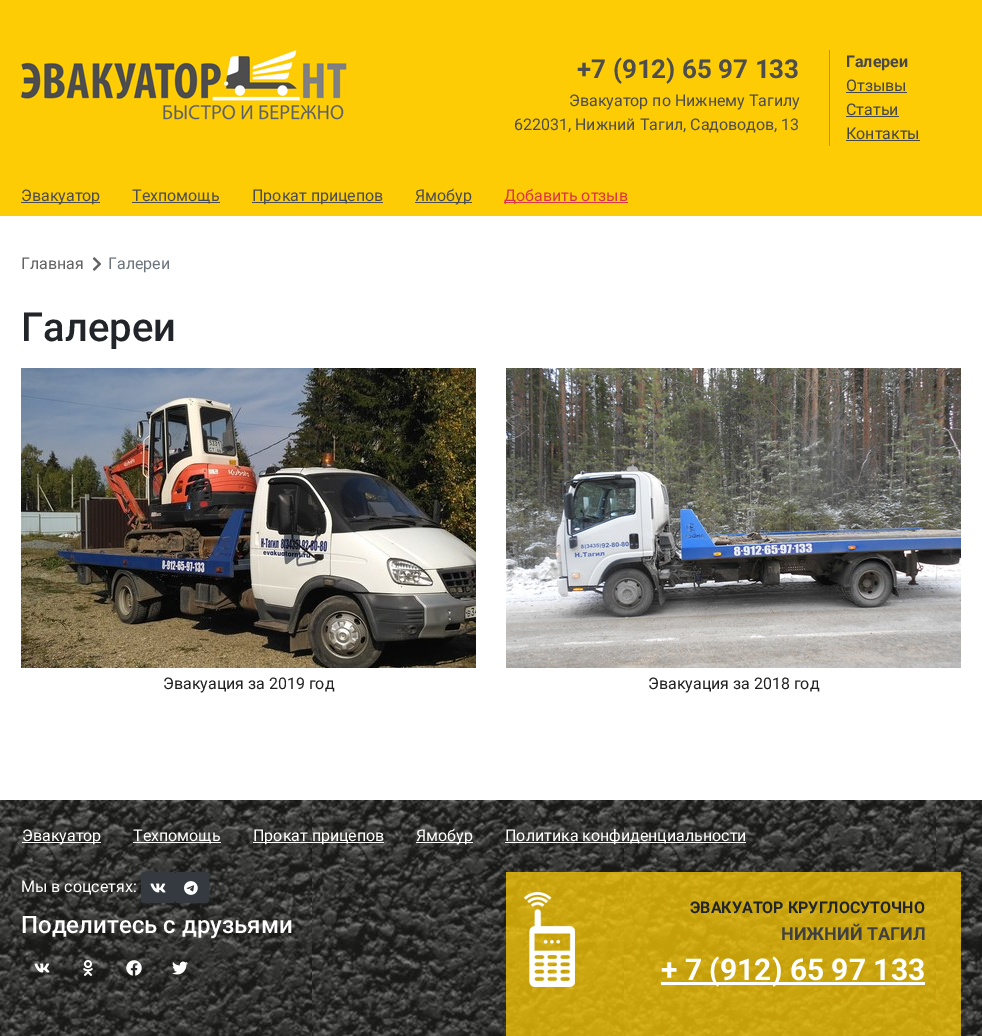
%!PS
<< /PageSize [982 1036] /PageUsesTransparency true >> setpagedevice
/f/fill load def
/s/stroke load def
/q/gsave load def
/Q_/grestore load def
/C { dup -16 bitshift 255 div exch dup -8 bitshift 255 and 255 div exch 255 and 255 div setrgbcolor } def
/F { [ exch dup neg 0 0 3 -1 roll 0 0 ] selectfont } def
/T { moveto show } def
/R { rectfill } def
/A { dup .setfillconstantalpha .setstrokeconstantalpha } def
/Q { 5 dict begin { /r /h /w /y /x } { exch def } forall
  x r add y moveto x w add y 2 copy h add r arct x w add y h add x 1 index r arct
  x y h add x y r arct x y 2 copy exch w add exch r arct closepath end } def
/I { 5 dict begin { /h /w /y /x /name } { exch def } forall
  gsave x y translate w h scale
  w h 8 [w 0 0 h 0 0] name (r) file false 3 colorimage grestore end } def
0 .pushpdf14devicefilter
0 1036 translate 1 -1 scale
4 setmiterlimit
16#FFFFFF C
0 0 982 1036 R
16#FDCC05 C
0 0 982 216 R
(1.rgb) 21 50 327 70 I
/Roboto-Bold 26 F
16#4D4D4D C
(+7 \(912\) 65 97 133) 577 78 T
/Roboto-Regular 16 F
(Эвакуатор по Нижнему Тагилу) 569 106 T
(622031, Нижний Тагил, Садоводов, 13) 514 130 T
16#919191 C
829 50 1 96 R
/Roboto-Bold 16 F
16#474747 C
(Галереи) 846 67 T
/Roboto-Regular 16 F
(Отзывы) 846 91 T
846 92 61 1 R
(Статьи) 846 115 T
846 116 53 1 R
(Контакты) 846 139 T
846 140 74 1 R
16#4D4D4D C
21 202 79 1 R
(Эвакуатор) 21 201 T
132 202 88 1 R
(Техпомощь) 132 201 T
252 202 131 1 R
(Прокат прицепов) 252 201 T
415 202 57 1 R
(Ямобур) 415 201 T
16#DC3545 C
504 202 124 1 R
(Добавить отзыв) 504 201 T
16#626262 C
(Главная) 21 269 T
(2.rgb) 92 257 10 14 I
16#6C757D C
(Галереи) 108 269 T
/Roboto-Medium 40 F
16#212529 C
(Галереи) 21 341 T
(3.rgb) 21 368 455 300 I
/Roboto-Regular 16 F
16#212121 C
(Эвакуация за 2019 год) 163 689 T
(4.rgb) 506 368 455 300 I
(Эвакуация за 2018 год) 648 689 T
(5.rgb) 0 800 982 236 I
16#FFFFFF C
22 842 79 1 R
(Эвакуатор) 22 841 T
133 842 88 1 R
(Техпомощь) 133 841 T
253 842 131 1 R
(Прокат прицепов) 253 841 T
416 842 57 1 R
(Ямобур) 416 841 T
505 842 241 1 R
(Политика конфиденциальности) 505 841 T
(Мы в соцсетях:) 21 892 T
16#343A40 C
141.5 872.5 33 30 2.5 Q q f Q_
s
(6.rgb) 150 883 16 10 I
175.5 872.5 33 30 2.5 Q q f Q_
s
(7.rgb) 184 881 14 14 I
/Roboto-Medium 24 F
16#FFFFFF C
(Поделитесь с друзьями) 21 933 T
(8.rgb) 34 963 16 10 I
(9.rgb) 83 960 10 16 I
(10.rgb) 126 960 16 16 I
(11.rgb) 172 961 16 14 I
0.75 A
16#FDCC05 C
506 872 455 164 R
1 A
(12.rgb) 524 892 51 95 I
/Roboto-Bold 16 F
16#212529 C
(ЭВАКУАТОР КРУГЛОСУТОЧНО) 690 913 T
/Roboto-Bold 18 F
16#404040 C
(НИЖНИЙ ТАГИЛ) 781 940 T
16#FFFFFF C
661 982 264 3 R
/Roboto-Bold 30 F
(+ 7 \(912\) 65 97 133) 661 980 T
.poppdf14devicefilter showpage
